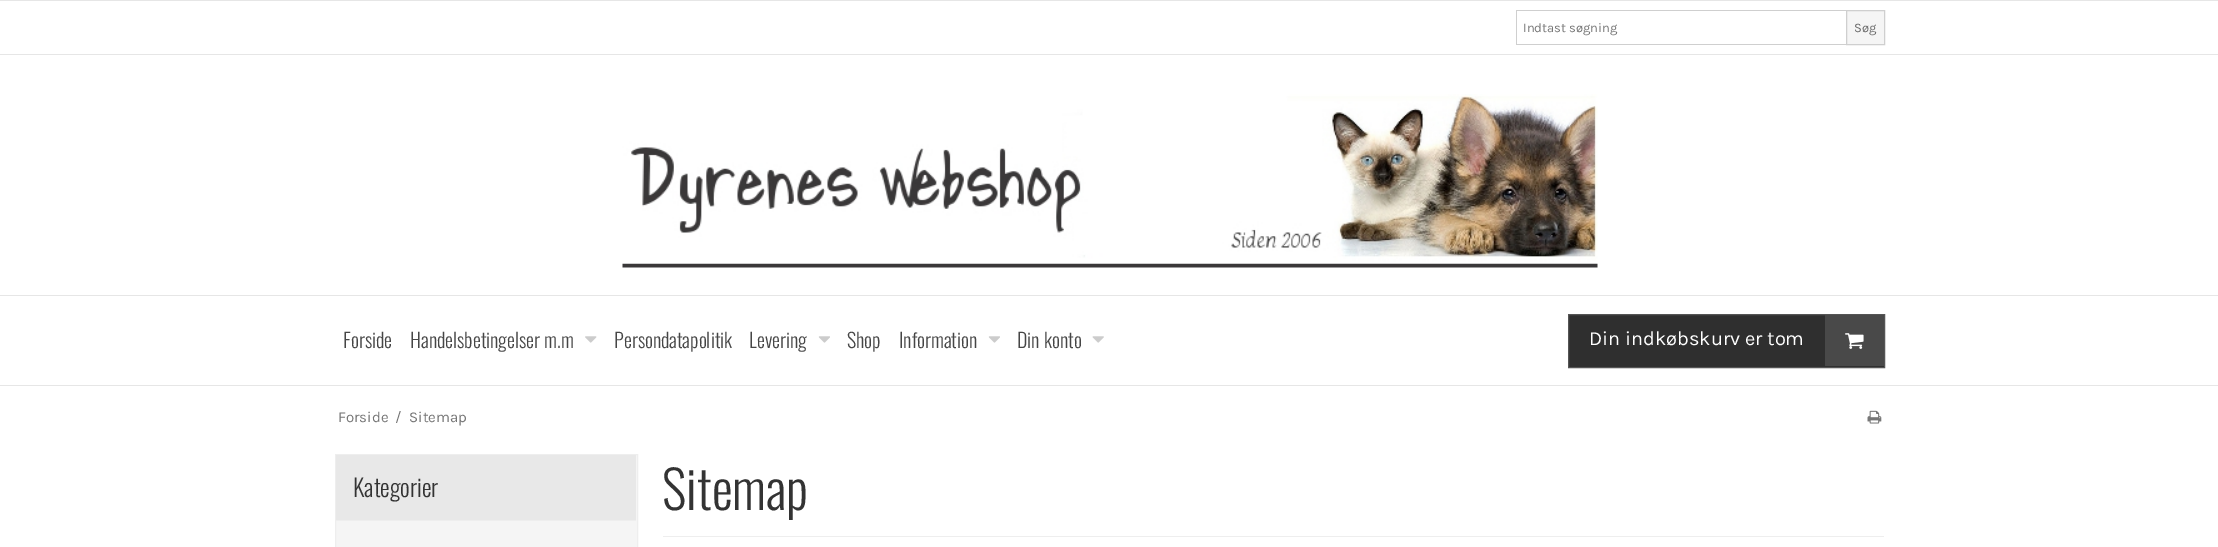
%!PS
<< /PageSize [2218 547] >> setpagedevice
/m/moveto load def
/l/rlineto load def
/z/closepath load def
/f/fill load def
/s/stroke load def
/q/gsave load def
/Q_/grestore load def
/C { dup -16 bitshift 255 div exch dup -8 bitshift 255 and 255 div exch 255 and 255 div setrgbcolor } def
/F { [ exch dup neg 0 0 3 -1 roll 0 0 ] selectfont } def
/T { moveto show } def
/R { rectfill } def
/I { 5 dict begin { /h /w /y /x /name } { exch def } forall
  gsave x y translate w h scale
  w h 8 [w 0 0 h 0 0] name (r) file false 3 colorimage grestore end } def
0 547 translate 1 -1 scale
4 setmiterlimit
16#FFFFFF C
0 0 2218 547 R
16#E6E6E6 C
0 0 2218 1 R
0 54 2218 1 R
16#CFCFCF C
1516 10 332 1 R
1516 44 332 1 R
1516 10 1 35 R
/Karla-Regular 13 F
16#757575 C
(Indtast søgning) 1523 32 T
16#F5F5F5 C
1846.5 10.5 m 38 0 l 0 34 l -38 0 l z q f Q_
16#CFCFCF C
s
16#6C6C6C C
(Søg) 1854 32 T
(1.rgb) 622 94 976 174 I
16#E6E6E6 C
0 295 2218 1 R
0 385 2218 1 R
/Oswald-Light 20 F
16#464646 C
(Forside) 343 348 T
(Handelsbetingelser m.m) 410 348 T
(2.rgb) 585 336 12 7 I
(Persondatapolitik) 614 348 T
(Levering) 749 348 T
(3.rgb) 818 336 12 7 I
(Shop) 847 348 T
(Information) 899 348 T
(3.rgb) 988 336 12 7 I
(Din konto) 1017 348 T
(4.rgb) 1092 336 12 7 I
16#2F2F2F C
1568.5 314.5 m 316 0 l 0 53 l -316 0 l z q f Q_
16#555555 C
s
/Karla-Regular 20 F
16#FFFFFF C
(Din indkøbskurv er tom) 1589 345 T
16#494949 C
1825 315 59 51 R
(5.rgb) 1845 333 19 16 I
/Karla-Regular 15 F
16#757575 C
(Forside) 338 422 T
(/) 395 422 T
(Sitemap) 409 422 T
(6.rgb) 1867 410 15 14 I
16#F5F5F5 C
335.5 454.5 m 302 0 l 0 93 l -302 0 l z q f Q_
16#EEEEEE C
s
16#E8E8E8 C
336 455 300 65 R
16#EEEEEE C
336 520 300 1 R
/Oswald-Light 24 F
16#333333 C
(Kategorier) 353 497 T
16#EEEEEE C
663 536 1221 1 R
/Oswald-Light 52.5 F
16#333333 C
(Sitemap) 662 510 T
showpage
